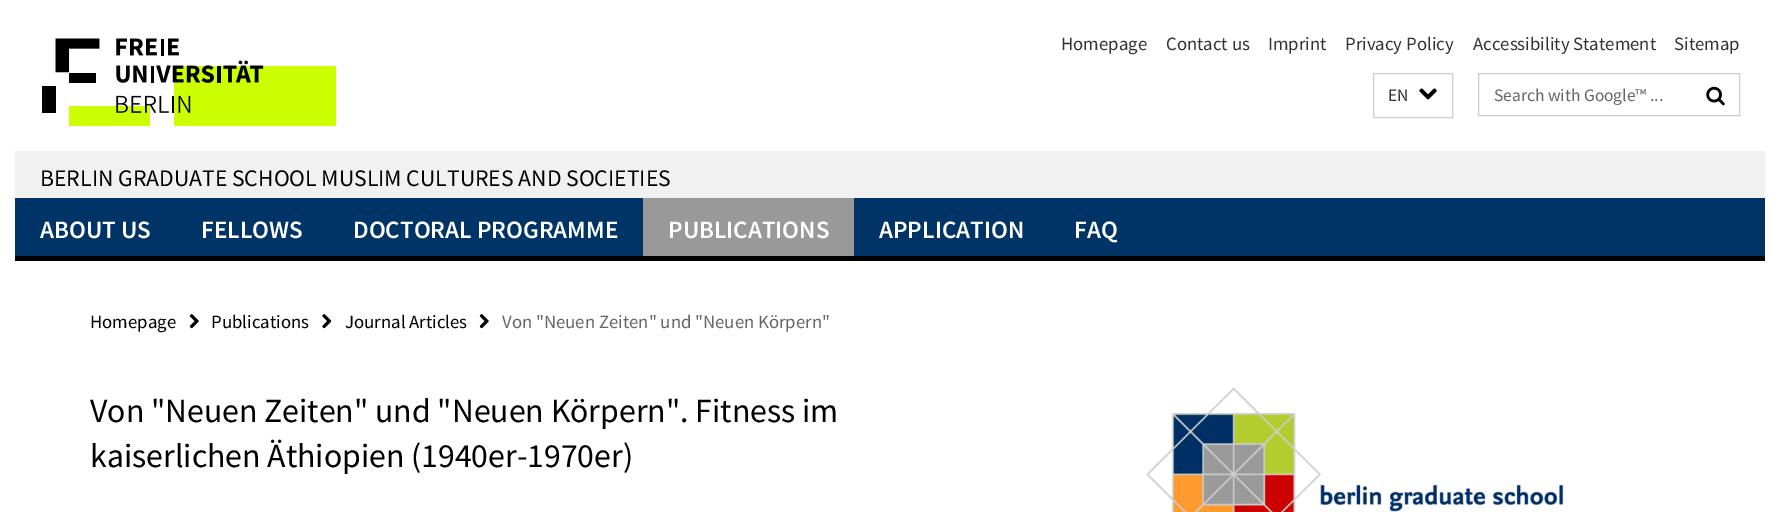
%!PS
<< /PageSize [1779 512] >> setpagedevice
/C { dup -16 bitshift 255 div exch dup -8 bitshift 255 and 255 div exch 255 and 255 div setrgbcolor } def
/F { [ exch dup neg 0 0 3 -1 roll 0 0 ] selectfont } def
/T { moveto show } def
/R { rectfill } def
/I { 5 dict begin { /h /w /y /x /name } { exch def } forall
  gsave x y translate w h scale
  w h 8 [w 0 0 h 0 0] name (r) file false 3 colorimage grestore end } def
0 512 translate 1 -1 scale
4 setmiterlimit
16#FFFFFF C
0 0 1779 512 R
(1.rgb) 42 38 294 88 I
/SourceSansPro-Regular 18.75 F
16#333333 C
(Homepage) 1061 50 T
(Contact us) 1166 50 T
(Imprint) 1268 50 T
(Privacy Policy) 1345 50 T
(Accessibility Statement) 1473 50 T
(Sitemap) 1674 50 T
16#CCCCCC C
1373.5 73.5 79 44 rectstroke
/SourceSansPro-Regular 17.5 F
16#333333 C
(EN) 1388 101 T
(2.rgb) 1419 88 18 12 I
16#CCCCCC C
1478.5 73.5 261 42 rectstroke
16#666666 C
(Search with Google™ ...) 1494 101 T
(3.rgb) 1706 86 19 20 I
16#F1F1F1 C
15 151 1750 47 R
/SourceSansPro-Regular 23.75 F
16#000000 C
(BERLIN GRADUATE SCHOOL MUSLIM CULTURES AND SOCIETIES) 40 186 T
16#003366 C
15 198 1750 58 R
16#000000 C
15 256 1750 5 R
/SourceSansPro-SemiBold 25 F
16#FFFFFF C
(ABOUT US) 40 238 T
(FELLOWS) 201 238 T
(DOCTORAL PROGRAMME) 353 238 T
16#999999 C
643 198 211 58 R
16#FFFFFF C
(PUBLICATIONS) 668 238 T
(APPLICATION) 879 238 T
(FAQ) 1074 238 T
/SourceSansPro-Regular 18.75 F
16#000000 C
(Homepage) 90 328 T
(4.rgb) 189 314 10 15 I
(Publications) 211 328 T
(5.rgb) 322 314 10 15 I
(Journal Articles) 345 328 T
(4.rgb) 479 314 10 15 I
16#666666 C
(Von "Neuen Zeiten" und "Neuen Körpern") 502 328 T
/SourceSansPro-Regular 33.75 F
16#000000 C
(Von "Neuen Zeiten" und "Neuen Körpern". Fitness im) 90 422 T
(kaiserlichen Äthiopien \(1940er-1970er\)) 90 467 T
(6.rgb) 1146 387 418 125 I
showpage
